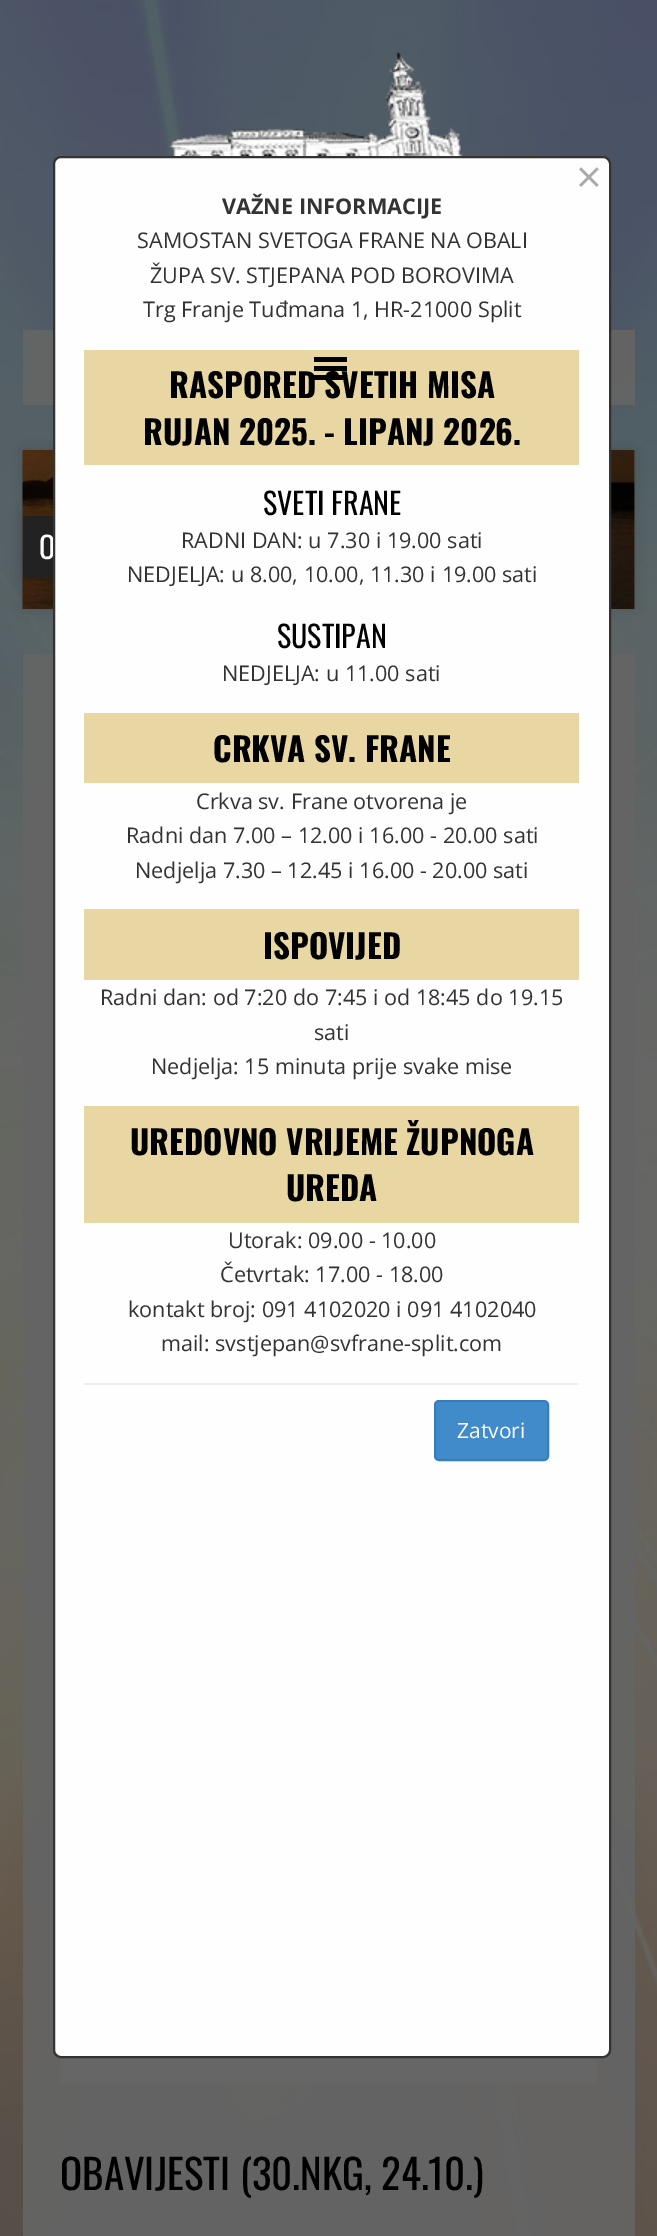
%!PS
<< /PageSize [657 2236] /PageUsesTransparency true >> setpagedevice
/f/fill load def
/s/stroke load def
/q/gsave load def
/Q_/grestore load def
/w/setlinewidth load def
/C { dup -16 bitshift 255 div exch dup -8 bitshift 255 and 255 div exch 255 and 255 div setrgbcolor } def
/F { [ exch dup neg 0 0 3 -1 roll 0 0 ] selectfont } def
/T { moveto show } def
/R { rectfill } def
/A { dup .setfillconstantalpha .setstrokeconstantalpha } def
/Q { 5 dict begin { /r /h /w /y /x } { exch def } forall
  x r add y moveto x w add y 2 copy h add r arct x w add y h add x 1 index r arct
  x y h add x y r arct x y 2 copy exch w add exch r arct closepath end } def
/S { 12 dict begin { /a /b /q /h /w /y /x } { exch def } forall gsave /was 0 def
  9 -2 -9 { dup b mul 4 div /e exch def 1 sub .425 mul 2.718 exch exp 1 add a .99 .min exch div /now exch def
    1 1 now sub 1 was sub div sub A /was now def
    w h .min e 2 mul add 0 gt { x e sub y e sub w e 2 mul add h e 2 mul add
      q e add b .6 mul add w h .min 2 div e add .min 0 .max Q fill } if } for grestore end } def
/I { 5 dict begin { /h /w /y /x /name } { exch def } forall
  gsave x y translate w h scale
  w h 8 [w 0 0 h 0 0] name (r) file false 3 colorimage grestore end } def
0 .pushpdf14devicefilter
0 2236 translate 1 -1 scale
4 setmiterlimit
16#FFFFFF C
0 0 657 2236 R
(1.rgb) 0 0 657 2236 I
0.94 A
16#646464 C
23 330 612 75 R
1 A
16#000000 C
23 450 612 159 0 7.5 .15 S
0.94 A
16#646464 C
634 450 1 159 R
1 A
(3.rgb) 22 450 613 159 I
16#000000 C
23 516 408 62 0 10.5 .15 S
16#222222 C
23 516 30 62 R
/Oswald-Regular 30 F
16#FFFFFF C
(O) 39 559 T
0.94 A
16#646464 C
23 654 612 1582 R
1 A
(4.rgb) 60 2057 537 27 I
16#FEFEFE C
54 157 556 1900 7 Q q f Q_
16#333333 C
2 w
s
/OpenSans-Regular 45 F
16#AAAAAA C
(×) 576 193 T
/OpenSans-Bold 21.6 F
16#333333 C
(VAŽNE INFORMACIJE) 222 214 T
/OpenSans-Regular 21.6 F
(SAMOSTAN SVETOGA FRANE NA OBALI) 137 248 T
(ŽUPA SV. STJEPANA POD BOROVIMA) 150 283 T
(Trg Franje Tuđmana 1, HR-21000 Split) 143 317 T
16#E8D7A2 C
84 350 495 115 R
/Oswald-Bold 33 F
16#000000 C
(RASPORED SVETIH MISA) 169 398 T
(RUJAN 2025. - LIPANJ 2026.) 143 445 T
/Oswald-Regular 30 F
(SVETI FRANE) 263 515 T
/OpenSans-Regular 21.6 F
16#333333 C
(RADNI DAN: u 7.30 i 19.00 sati) 181 548 T
(NEDJELJA: u 8.00, 10.00, 11.30 i 19.00 sati) 127 582 T
/Oswald-Regular 30 F
16#000000 C
(SUSTIPAN) 277 648 T
/OpenSans-Regular 21.6 F
16#333333 C
(NEDJELJA: u 11.00 sati) 222 681 T
16#E8D7A2 C
84 713 495 70 R
/Oswald-Bold 33 F
16#000000 C
(CRKVA SV. FRANE) 213 762 T
/OpenSans-Regular 21.6 F
16#333333 C
(Crkva sv. Frane otvorena je) 196 809 T
(Radni dan 7.00 – 12.00 i 16.00 - 20.00 sati) 126 843 T
(Nedjelja 7.30 – 12.45 i 16.00 - 20.00 sati) 135 878 T
16#E8D7A2 C
84 909 495 71 R
/Oswald-Bold 33 F
16#000000 C
(ISPOVIJED) 263 959 T
/OpenSans-Regular 21.6 F
16#333333 C
(Radni dan: od 7:20 do 7:45 i od 18:45 do 19.15) 100 1005 T
(sati) 314 1040 T
(Nedjelja: 15 minuta prije svake mise) 151 1074 T
16#E8D7A2 C
84 1106 495 117 R
/Oswald-Bold 33 F
16#000000 C
(UREDOVNO VRIJEME ŽUPNOGA) 130 1155 T
(UREDA) 286 1201 T
/OpenSans-Regular 21.6 F
16#333333 C
(Utorak: 09.00 - 10.00) 228 1248 T
(Četvrtak: 17.00 - 18.00) 220 1282 T
(kontakt broj: 091 4102020 i 091 4102040) 128 1317 T
(mail: svstjepan@svfrane-split.com) 161 1351 T
16#EEEEEE C
84 1383 495 2 R
16#428BCA C
435 1401 113 59 4 Q q f Q_
16#357EBD C
s
/OpenSans-Regular 21 F
16#FFFFFF C
(Zatvori) 457 1438 T
(2.rgb) 169 52 294 104 I
16#000000 C
314 357 33 5 R
314 366 33 5 R
314 375 33 5 R
/Oswald-Regular 41 F
(OBAVIJESTI \(30.NKG, 24.10.\)) 60 2190 T
.poppdf14devicefilter showpage
